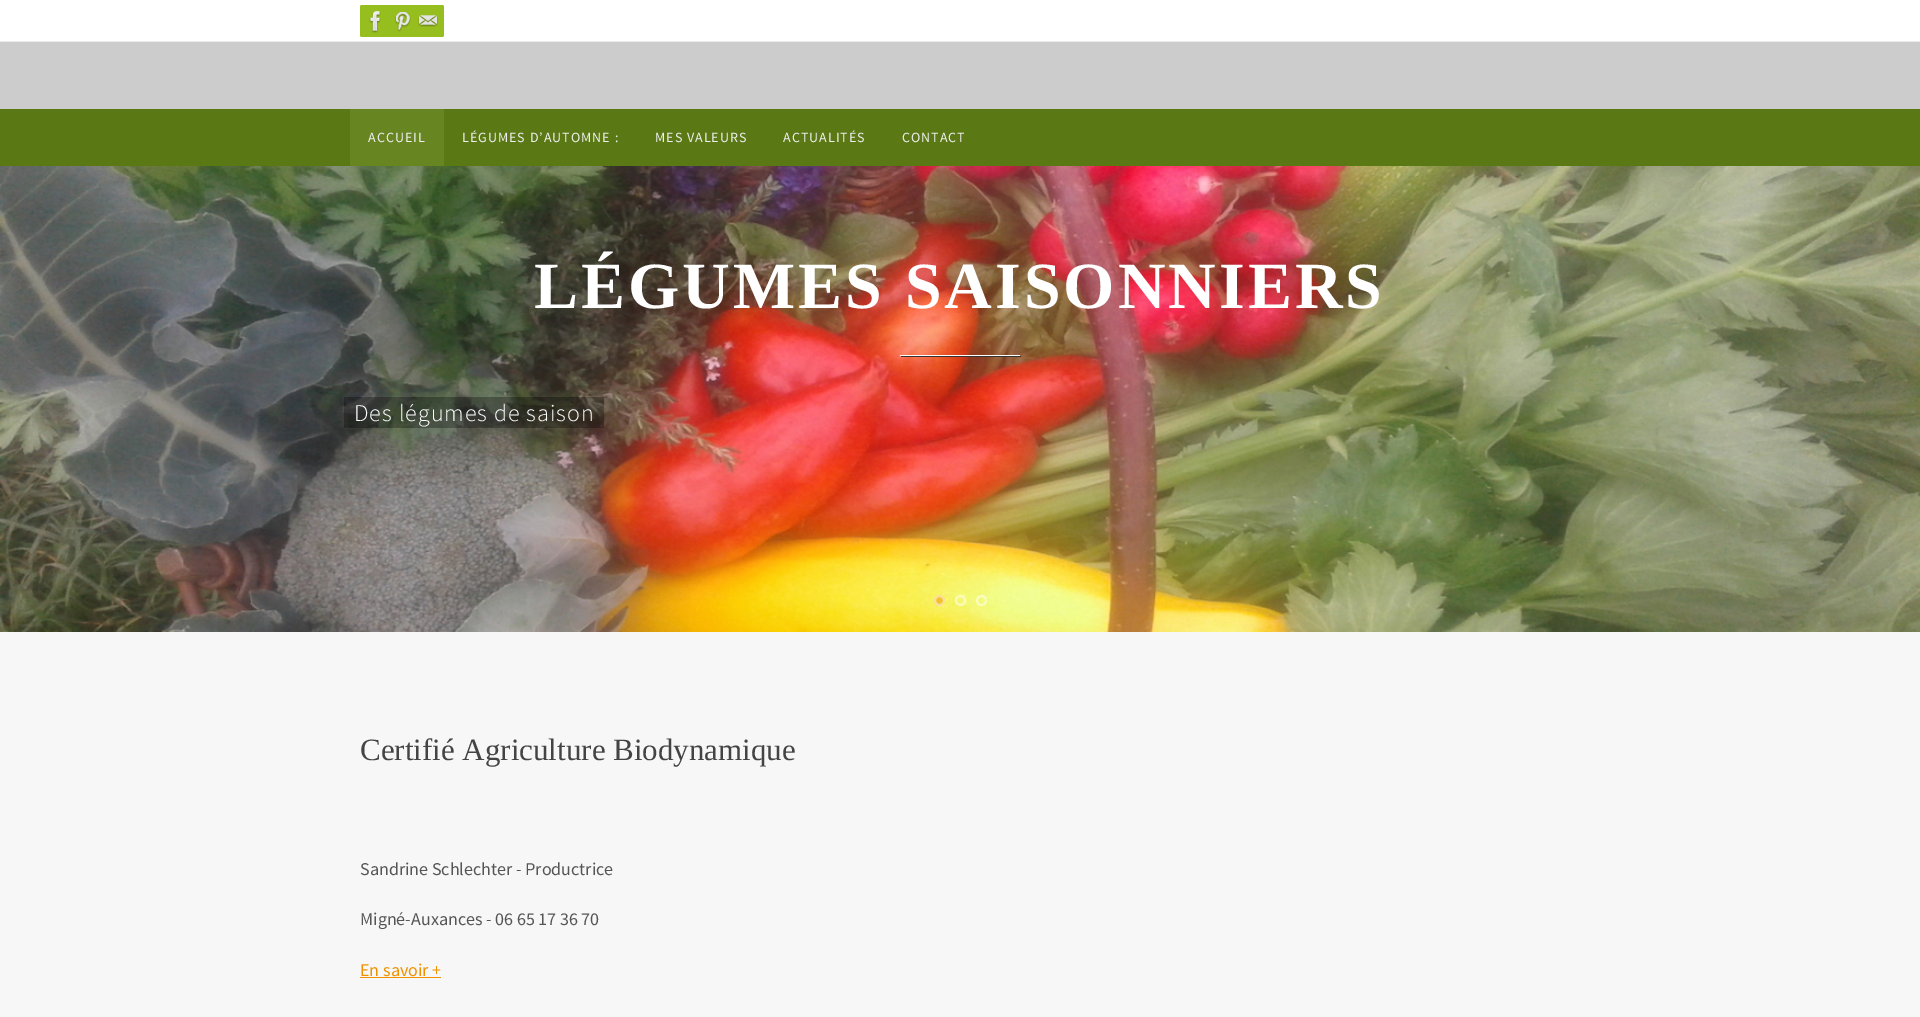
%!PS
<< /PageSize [1920 1017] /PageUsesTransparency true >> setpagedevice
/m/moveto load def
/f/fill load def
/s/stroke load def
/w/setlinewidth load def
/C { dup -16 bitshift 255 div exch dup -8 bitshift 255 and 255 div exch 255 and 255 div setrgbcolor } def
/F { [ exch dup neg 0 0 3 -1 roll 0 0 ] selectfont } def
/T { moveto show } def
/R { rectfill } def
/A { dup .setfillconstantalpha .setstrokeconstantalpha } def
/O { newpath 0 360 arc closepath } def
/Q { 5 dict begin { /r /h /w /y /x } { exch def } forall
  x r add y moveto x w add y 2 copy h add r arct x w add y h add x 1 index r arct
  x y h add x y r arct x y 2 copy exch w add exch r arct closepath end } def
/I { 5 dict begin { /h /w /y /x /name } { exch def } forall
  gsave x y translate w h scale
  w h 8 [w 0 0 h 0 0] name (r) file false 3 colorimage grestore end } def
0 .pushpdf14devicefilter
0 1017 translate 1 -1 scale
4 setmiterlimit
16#CCCCCC C
0 0 1920 1017 R
16#FFFFFF C
0 0 1920 41 R
16#EBEBEB C
0 41 1920 1 R
16#96BE1E C
360 5 32 32 2 Q f
(1.rgb) 369 11 12 22 I
386 5 32 32 2 Q f
(2.rgb) 395 12 16 20 I
412 5 32 32 2 Q f
(3.rgb) 418 15 20 12 I
16#5A7814 C
0 109 1920 57 R
16#678521 C
350 109 94 57 R
/SourceSansPro-Regular 14 F
16#EEEEEE C
368 142 m 1 0 (ACCUEIL) ashow
462 142 m 1 0 (LÉGUMES D’AUTOMNE :) ashow
655 142 m 1 0 (MES VALEURS) ashow
783 142 m 1 0 (ACTUALITÉS) ashow
902 142 m 1 0 (CONTACT) ashow
(4.rgb) 0 166 1920 466 I
/LiberationSerif-Bold 66 F
16#FFFFFF C
534 308 m 3 0 (LÉGUMES SAISONNIERS) ashow
16#333333 C
901 356 120 1 R
16#FFFFFF C
900 355 120 1 R
0.3 A
16#000000 C
354 397 240 31 R
/SourceSansPro-Light 24 F
1 A
16#FFFFFF C
354 421 m 1 0 (Des légumes de saison) ashow
0.3 A
16#000000 C
344 397 10 31 R
594 397 10 31 R
0.5 A
16#F09100 C
939.5 600.5 5.5 O f
16#FFFFFF C
2 w
939.5 600.5 4.5 O s
960.5 600.5 4.5 O s
981.5 600.5 4.5 O s
1 A
16#F7F7F7 C
0 632 1920 385 R
/LiberationSerif-Regular 31 F
16#444444 C
(Certifié Agriculture Biodynamique) 360 760 T
/SourceSansPro-Regular 18 F
16#555555 C
(Sandrine Schlechter - Productrice) 360 875 T
(Migné-Auxances - 06 65 17 36 70) 360 925 T
16#F09100 C
(En savoir +) 360 976 T
360 977 81 1 R
.poppdf14devicefilter showpage
